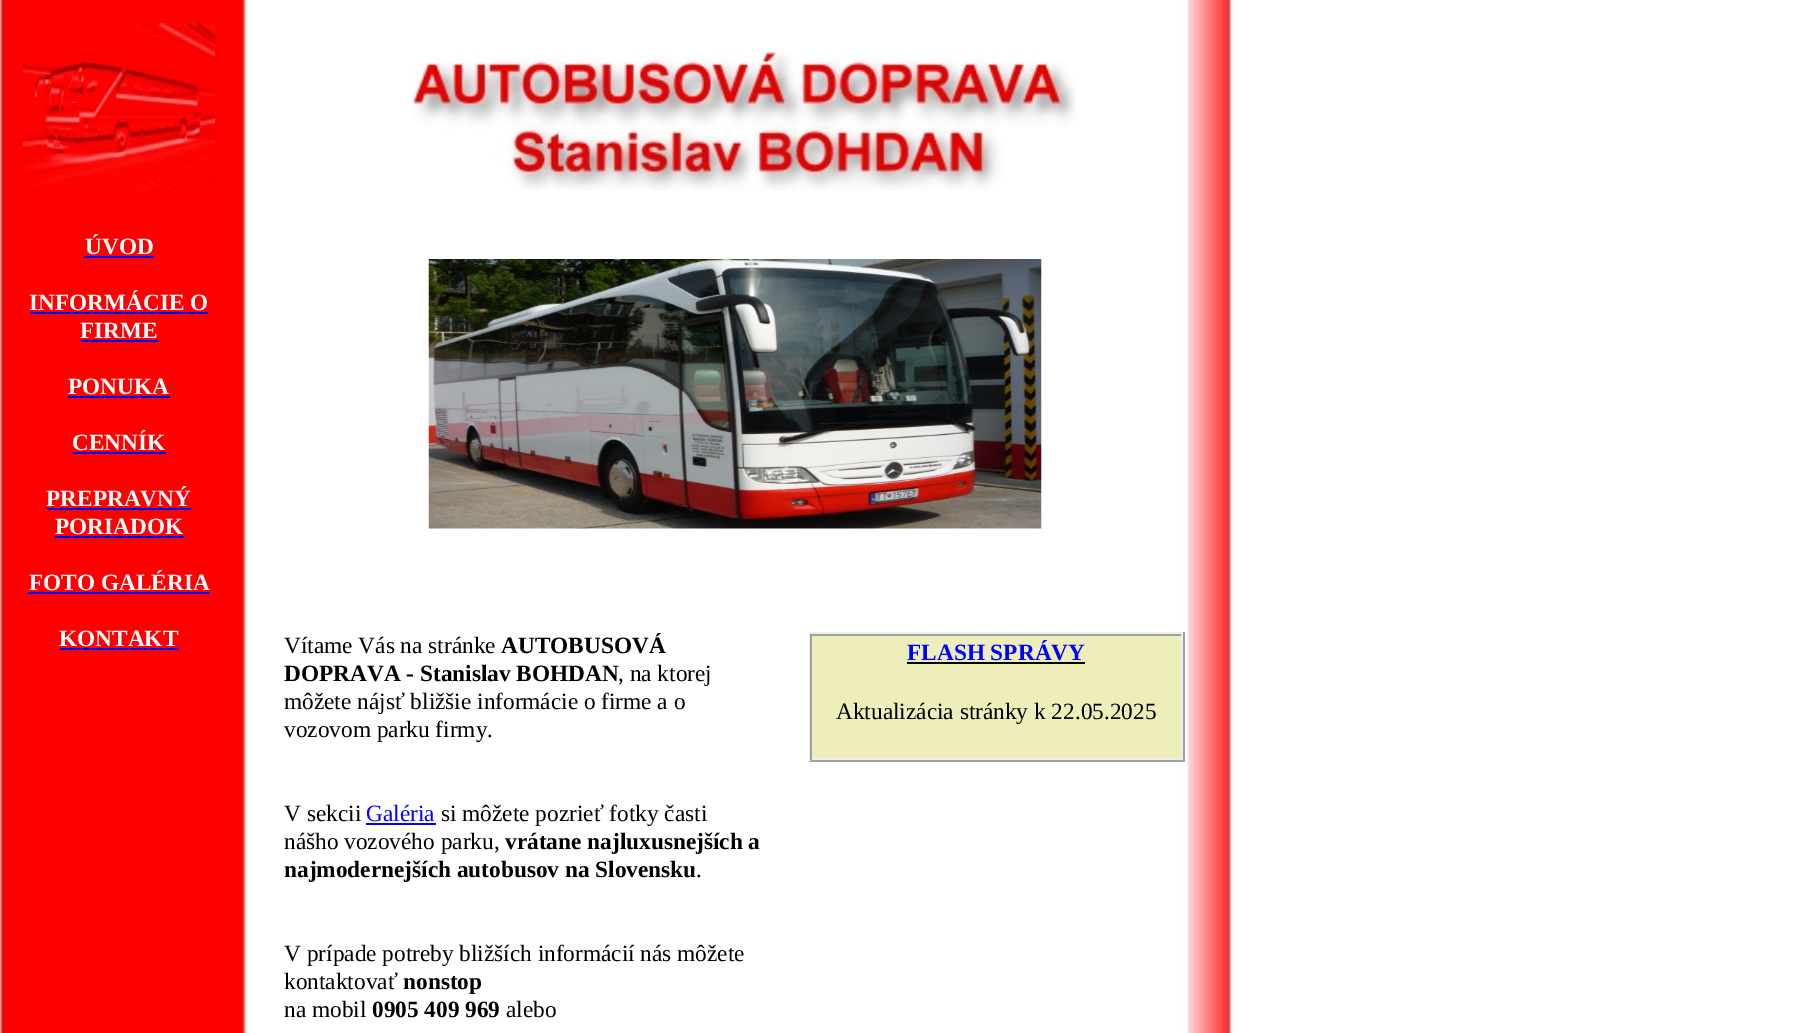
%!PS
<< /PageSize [1806 1033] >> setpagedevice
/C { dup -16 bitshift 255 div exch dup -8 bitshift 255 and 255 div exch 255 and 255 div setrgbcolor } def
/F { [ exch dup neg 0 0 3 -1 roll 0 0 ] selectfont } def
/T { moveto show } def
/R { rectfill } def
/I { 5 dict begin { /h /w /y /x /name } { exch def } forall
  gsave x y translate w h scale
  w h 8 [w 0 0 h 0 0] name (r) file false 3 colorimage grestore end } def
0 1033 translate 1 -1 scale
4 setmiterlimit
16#FFFFFF C
0 0 1806 1033 R
(1.rgb) 0 0 1234 1033 I
(2.rgb) 22 22 194 167 I
(3.rgb) 411 50 666 141 I
/LiberationSerif-Bold 23.3 F
(ÚVOD) 85 254 T
16#0000FF C
84 256 70 2 R
16#FFFFFF C
(INFORMÁCIE O) 29 310 T
16#0000FF C
30 312 178 2 R
16#FFFFFF C
(FIRME) 80 338 T
16#0000FF C
81 340 77 2 R
16#FFFFFF C
(PONUKA) 68 394 T
16#0000FF C
68 396 102 2 R
16#FFFFFF C
(CENNÍK) 72 450 T
16#0000FF C
72 452 94 2 R
16#FFFFFF C
(PREPRAVNÝ) 46 506 T
16#0000FF C
47 508 144 2 R
16#FFFFFF C
(PORIADOK) 55 534 T
16#0000FF C
54 536 130 2 R
16#FFFFFF C
(FOTO GALÉRIA) 29 590 T
16#0000FF C
28 592 182 2 R
16#FFFFFF C
(KONTAKT) 59 646 T
16#0000FF C
60 648 119 2 R
(4.rgb) 428 259 614 270 I
/LiberationSerif-Regular 23.3 F
16#000000 C
(Vítame Vás na stránke) 284 653 T
/LiberationSerif-Bold 23.3 F
(AUTOBUSOVÁ) 501 653 T
(DOPRAVA - Stanislav BOHDAN) 284 681 T
/LiberationSerif-Regular 23.3 F
(, na ktorej) 618 681 T
(môžete nájsť bližšie informácie o firme a o) 284 709 T
(vozovom parku firmy.) 284 737 T
(V sekcii) 284 821 T
16#0000FF C
(Galéria) 366 821 T
366 823 70 2 R
16#000000 C
(si môžete pozrieť fotky časti) 441 821 T
(nášho vozového parku,) 284 849 T
/LiberationSerif-Bold 23.3 F
(vrátane najluxusnejších a) 505 849 T
(najmodernejších autobusov na Slovensku) 284 877 T
/LiberationSerif-Regular 23.3 F
(.) 696 877 T
(V prípade potreby bližších informácií nás môžete) 284 961 T
(kontaktovať) 284 989 T
/LiberationSerif-Bold 23.3 F
(nonstop) 403 989 T
/LiberationSerif-Regular 23.3 F
(na mobil) 284 1017 T
/LiberationSerif-Bold 23.3 F
(0905 409 969) 372 1017 T
/LiberationSerif-Regular 23.3 F
(alebo) 506 1017 T
16#EEEEBB C
812 636 369 122 R
16#EEEEEE C
809 632 376 2 R
16#9F9F9F C
1183 632 2 129 R
809 760 376 2 R
16#EEEEEE C
809 632 2 129 R
16#9F9F9F C
810 634 373 2 R
16#EEEEEE C
1181 634 2 126 R
810 758 373 2 R
16#9F9F9F C
810 634 2 126 R
/LiberationSerif-Bold 23.3 F
16#0000FF C
(FLASH SPRÁVY) 907 660 T
16#000000 C
907 662 178 2 R
/LiberationSerif-Regular 23.3 F
(Aktualizácia stránky k 22.05.2025) 836 719 T
showpage
